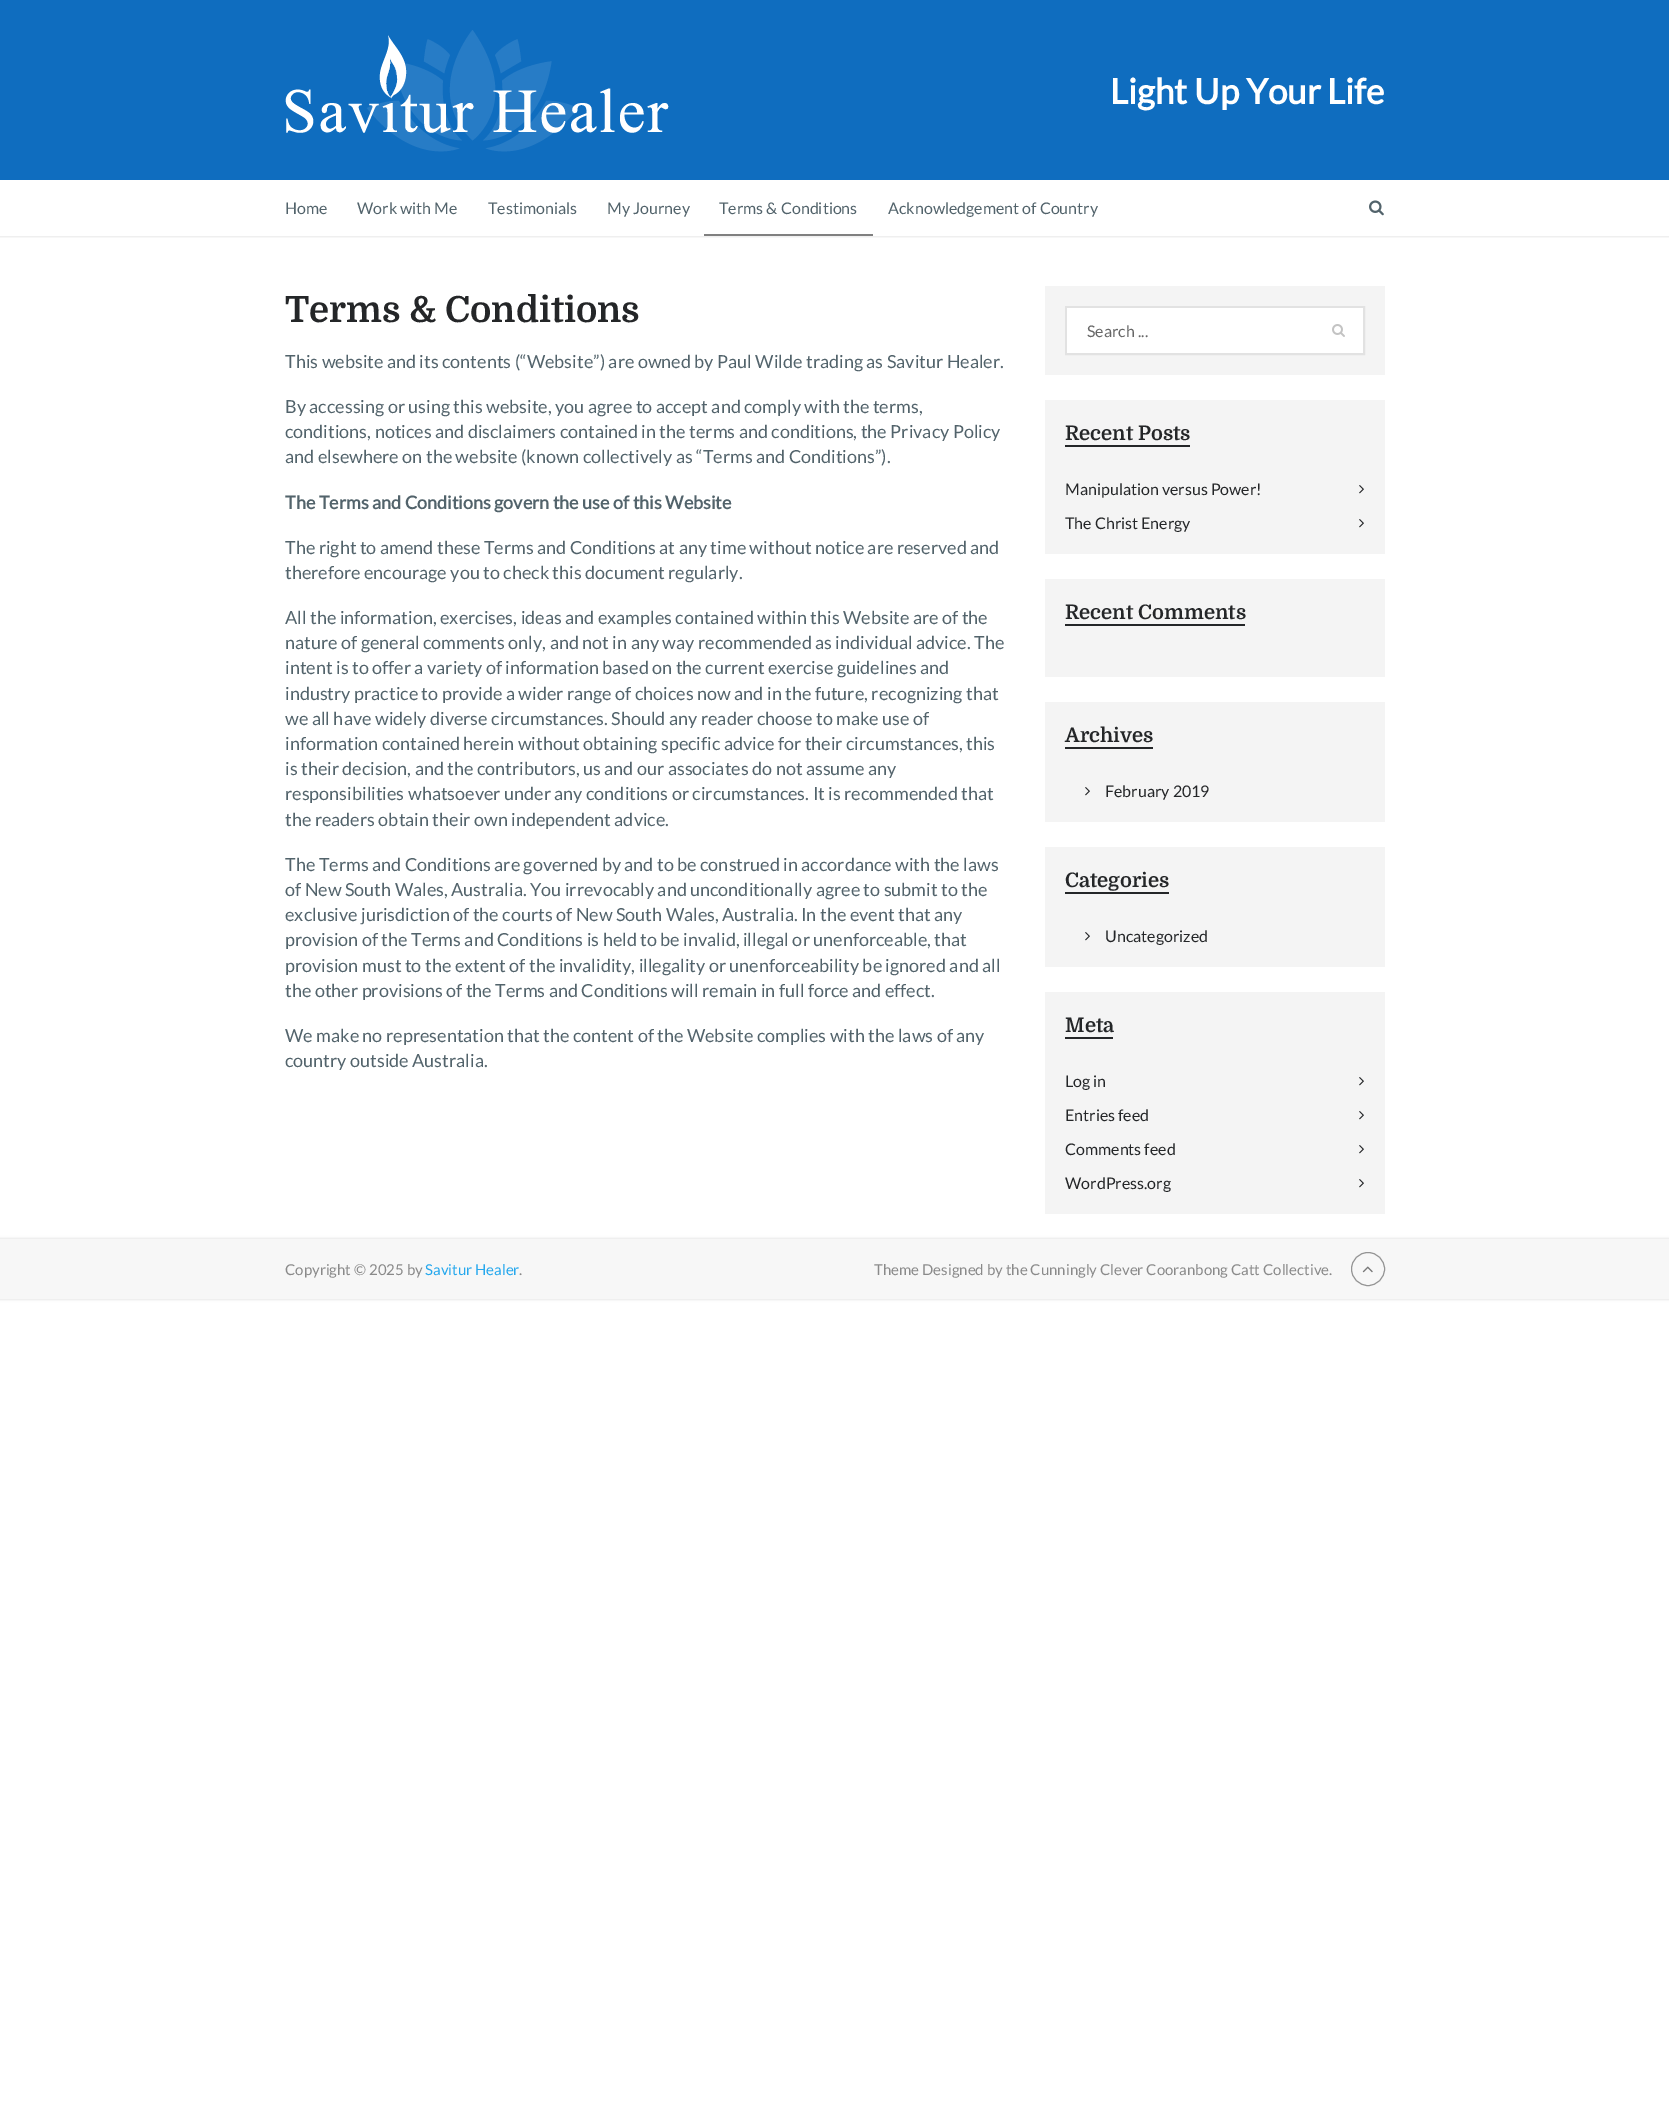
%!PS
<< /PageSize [1669 2105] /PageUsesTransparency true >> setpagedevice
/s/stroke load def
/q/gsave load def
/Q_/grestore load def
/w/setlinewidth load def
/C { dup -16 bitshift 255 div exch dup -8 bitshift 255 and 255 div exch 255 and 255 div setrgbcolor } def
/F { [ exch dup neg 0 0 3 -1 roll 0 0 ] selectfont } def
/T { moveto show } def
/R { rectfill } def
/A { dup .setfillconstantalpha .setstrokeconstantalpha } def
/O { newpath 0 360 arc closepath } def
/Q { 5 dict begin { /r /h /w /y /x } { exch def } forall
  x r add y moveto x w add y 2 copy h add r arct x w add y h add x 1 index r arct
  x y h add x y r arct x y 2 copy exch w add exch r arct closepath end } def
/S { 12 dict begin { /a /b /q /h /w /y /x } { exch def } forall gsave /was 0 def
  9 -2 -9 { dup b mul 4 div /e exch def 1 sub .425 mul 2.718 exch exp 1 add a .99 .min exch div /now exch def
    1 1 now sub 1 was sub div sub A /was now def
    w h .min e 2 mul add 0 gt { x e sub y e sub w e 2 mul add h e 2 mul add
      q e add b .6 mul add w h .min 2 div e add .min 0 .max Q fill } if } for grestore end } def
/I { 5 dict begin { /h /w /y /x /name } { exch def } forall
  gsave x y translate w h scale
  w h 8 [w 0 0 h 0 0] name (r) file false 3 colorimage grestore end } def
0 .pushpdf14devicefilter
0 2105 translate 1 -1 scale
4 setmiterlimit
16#FFFFFF C
0 0 1669 2105 R
q
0 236 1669 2 rectclip
16#000000 C
0 180 1669 56 0 1.5 .15 S
Q_
16#0F6DBF C
0 0 1669 180 R
(1.rgb) 285 30 384 122 I
/Lato-Bold 35 F
16#FFFFFF C
(Light Up Your Life) 1110 104 T
/Lato-Regular 16 F
16#52636B C
(Home) 285 214 T
(Work with Me) 357 214 T
(Testimonials) 488 214 T
(My Journey) 607 214 T
(Terms & Conditions) 719 214 T
16#808080 C
704 234 169 2 R
16#52636B C
(Acknowledgement of Country) 888 214 T
(2.rgb) 1369 200 15 16 I
/Domine-Bold 36 F
16#242628 C
(Terms & Conditions) 285 322 T
/Lato-Regular 18 F
16#52636B C
(This website and its contents \(“Website”\) are owned by Paul Wilde trading as Savitur Healer.) 285 368 T
(By accessing or using this website, you agree to accept and comply with the terms,) 285 413 T
(conditions, notices and disclaimers contained in the terms and conditions, the Privacy Policy) 285 438 T
(and elsewhere on the website \(known collectively as “Terms and Conditions”\).) 285 463 T
/Lato-Bold 18 F
(The Terms and Conditions govern the use of this Website) 285 509 T
/Lato-Regular 18 F
(The right to amend these Terms and Conditions at any time without notice are reserved and) 285 554 T
(therefore encourage you to check this document regularly.) 285 579 T
(All the information, exercises, ideas and examples contained within this Website are of the) 285 624 T
(nature of general comments only, and not in any way recommended as individual advice. The) 285 649 T
(intent is to offer a variety of information based on the current exercise guidelines and) 285 674 T
(industry practice to provide a wider range of choices now and in the future, recognizing that) 285 700 T
(we all have widely diverse circumstances. Should any reader choose to make use of) 285 725 T
(information contained herein without obtaining specific advice for their circumstances, this) 285 750 T
(is their decision, and the contributors, us and our associates do not assume any) 285 775 T
(responsibilities whatsoever under any conditions or circumstances. It is recommended that) 285 800 T
(the readers obtain their own independent advice.) 285 826 T
(The Terms and Conditions are governed by and to be construed in accordance with the laws) 285 871 T
(of New South Wales, Australia. You irrevocably and unconditionally agree to submit to the) 285 896 T
(exclusive jurisdiction of the courts of New South Wales, Australia. In the event that any) 285 921 T
(provision of the Terms and Conditions is held to be invalid, illegal or unenforceable, that) 285 946 T
(provision must to the extent of the invalidity, illegality or unenforceability be ignored and all) 285 972 T
(the other provisions of the Terms and Conditions will remain in full force and effect.) 285 997 T
(We make no representation that the content of the Website complies with the laws of any) 285 1042 T
(country outside Australia.) 285 1067 T
16#F4F4F4 C
1045 286 340 89 R
16#E2E2E2 C
2 w
1066 307 298 47 rectstroke
16#FFFFFF C
1067 308 296 45 R
/Lato-Regular 16 F
16#666666 C
(Search ...) 1087 337 T
(3.rgb) 1332 324 13 13 I
16#F4F4F4 C
1045 400 340 154 R
/Domine-Bold 20 F
16#242628 C
(Recent Posts) 1065 440 T
1065 445 125 2 R
/Lato-Regular 16 F
(Manipulation versus Power!) 1065 495 T
(4.rgb) 1359 485 5 9 I
(The Christ Energy) 1065 529 T
(4.rgb) 1359 519 5 9 I
16#F4F4F4 C
1045 579 340 98 R
/Domine-Bold 20 F
16#242628 C
(Recent Comments) 1065 619 T
1065 624 180 2 R
16#F4F4F4 C
1045 702 340 120 R
16#242628 C
(Archives) 1065 742 T
1065 747 88 2 R
(4.rgb) 1085 787 5 9 I
/Lato-Regular 16 F
(February 2019) 1105 797 T
16#F4F4F4 C
1045 847 340 120 R
/Domine-Bold 20 F
16#242628 C
(Categories) 1065 887 T
1065 892 104 2 R
(4.rgb) 1085 932 5 9 I
/Lato-Regular 16 F
(Uncategorized) 1105 942 T
16#F4F4F4 C
1045 992 340 222 R
/Domine-Bold 20 F
16#242628 C
(Meta) 1065 1032 T
1065 1037 48 2 R
/Lato-Regular 16 F
(Log in) 1065 1087 T
(4.rgb) 1359 1077 5 9 I
(Entries feed) 1065 1121 T
(4.rgb) 1359 1111 5 9 I
(Comments feed) 1065 1155 T
(4.rgb) 1359 1145 5 9 I
(WordPress.org) 1065 1189 T
(4.rgb) 1359 1179 5 9 I
16#000000 C
0 1239 1669 60 0 1.5 .15 S
16#F7F7F7 C
0 1239 1669 60 R
/Lato-Regular 15 F
16#8A8A8A C
(Copyright © 2025 by) 285 1275 T
16#26A8ED C
(Savitur Healer) 425 1275 T
16#8A8A8A C
(.) 519 1275 T
(Theme Designed by the Cunningly Clever Cooranbong Catt Collective.) 874 1275 T
16#949494 C
1 w
1368 1269 16.5 O s
(5.rgb) 1362 1266 11 7 I
.poppdf14devicefilter showpage
